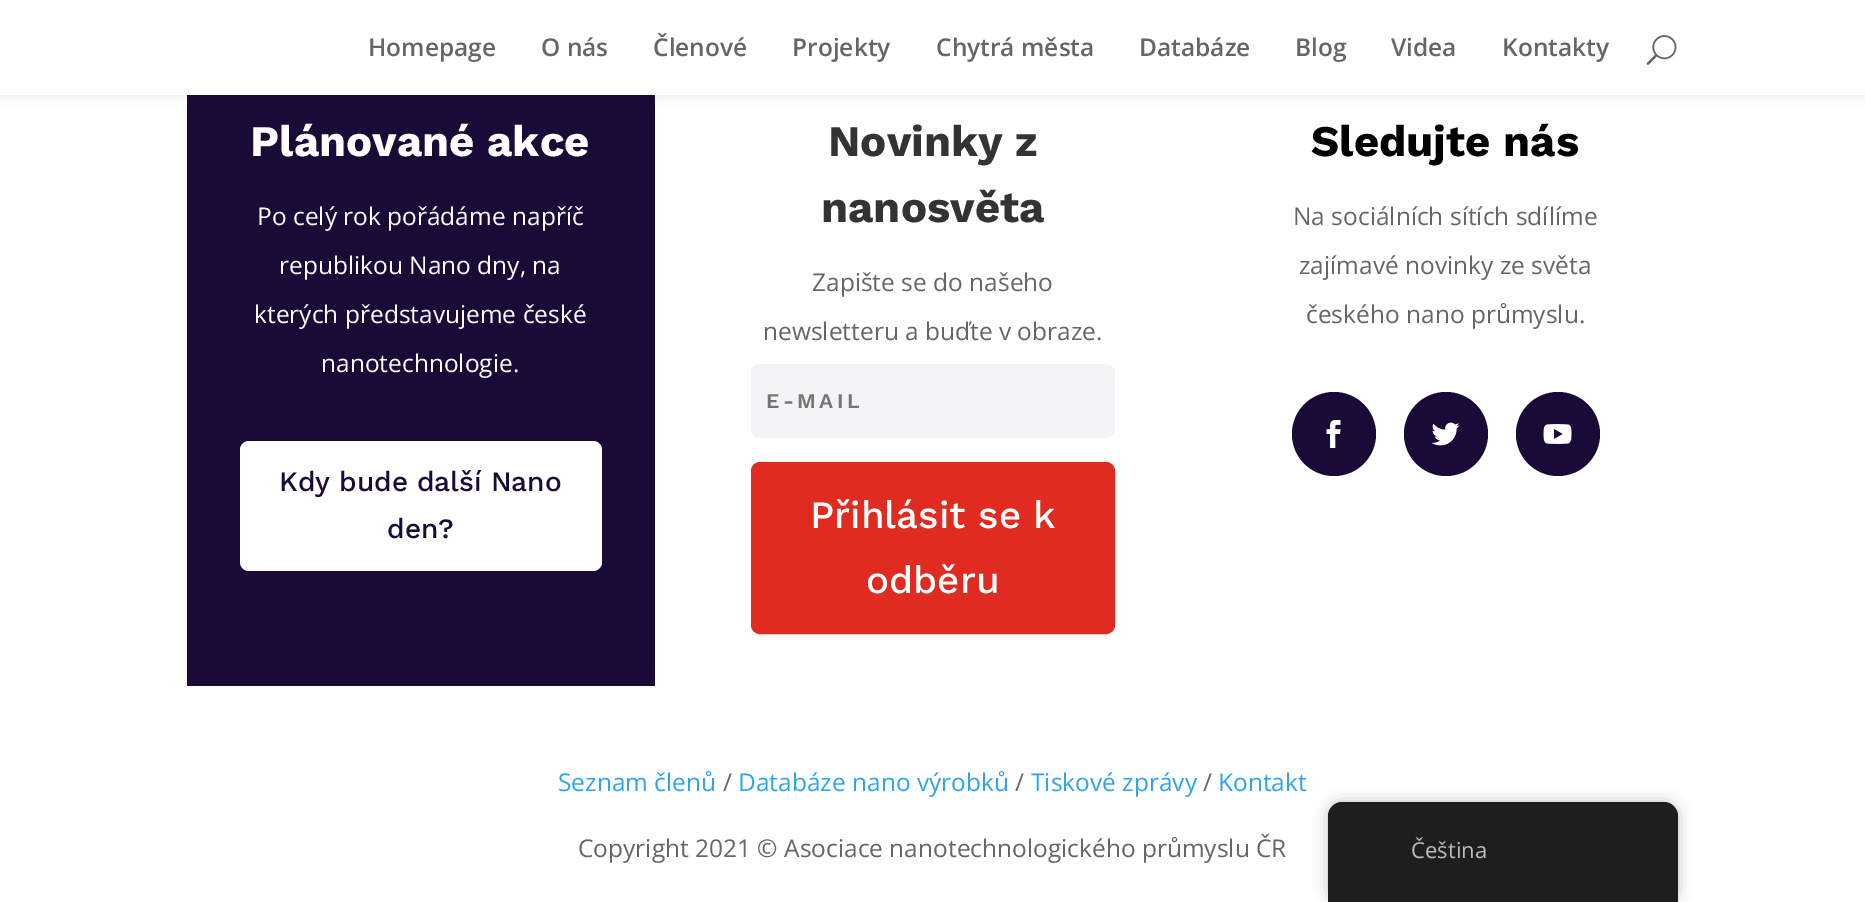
%!PS
<< /PageSize [1865 902] /PageUsesTransparency true >> setpagedevice
/m/moveto load def
/l/rlineto load def
/c/rcurveto load def
/z/closepath load def
/f/fill load def
/s/stroke load def
/q/gsave load def
/Q_/grestore load def
/w/setlinewidth load def
/C { dup -16 bitshift 255 div exch dup -8 bitshift 255 and 255 div exch 255 and 255 div setrgbcolor } def
/F { [ exch dup neg 0 0 3 -1 roll 0 0 ] selectfont } def
/T { moveto show } def
/R { rectfill } def
/A { dup .setfillconstantalpha .setstrokeconstantalpha } def
/O { newpath 0 360 arc closepath } def
/Q { 5 dict begin { /r /h /w /y /x } { exch def } forall
  x r add y moveto x w add y 2 copy h add r arct x w add y h add x 1 index r arct
  x y h add x y r arct x y 2 copy exch w add exch r arct closepath end } def
/S { 12 dict begin { /a /b /q /h /w /y /x } { exch def } forall gsave /was 0 def
  9 -2 -9 { dup b mul 4 div /e exch def 1 sub .425 mul 2.718 exch exp 1 add a .99 .min exch div /now exch def
    1 1 now sub 1 was sub div sub A /was now def
    w h .min e 2 mul add 0 gt { x e sub y e sub w e 2 mul add h e 2 mul add
      q e add b .6 mul add w h .min 2 div e add .min 0 .max Q fill } if } for grestore end } def
/I { 5 dict begin { /h /w /y /x /name } { exch def } forall
  gsave x y translate w h scale
  w h 8 [w 0 0 h 0 0] name (r) file false 3 colorimage grestore end } def
0 .pushpdf14devicefilter
0 902 translate 1 -1 scale
4 setmiterlimit
16#FFFFFF C
0 0 1865 902 R
16#1A0A38 C
187 95 468 591 R
16#000000 C
0 0 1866 95 0 6 .1 S
16#FFFFFF C
0 0 1865 95 R
/OpenSans-SemiBold 24.5 F
16#666666 C
(Homepage) 368 56 T
(O nás) 541 56 T
(Členové) 653 56 T
(Projekty) 792 56 T
(Chytrá města) 936 56 T
(Databáze) 1139 56 T
(Blog) 1295 56 T
(Videa) 1391 56 T
(Kontakty) 1502 56 T
(1.rgb) 1646 35 31 30 I
/WorkSans-Bold 43.75 F
16#FFFFFF C
(Plánované akce) 250 156 T
/OpenSans-Regular 24.5 F
(Po celý rok pořádáme napříč) 257 225 T
(republikou Nano dny, na) 279 274 T
(kterých představujeme české) 254 323 T
(nanotechnologie.) 321 372 T
240 441 362 130 9 Q f
/WorkSans-Medium 28 F
16#1A0A38 C
(Kdy bude další Nano) 279 491 T
(den?) 387 538 T
/WorkSans-Bold 43.75 F
16#333333 C
(Novinky z) 828 156 T
(nanosvěta) 821 222 T
/OpenSans-Regular 24.5 F
16#666666 C
(Zapište se do našeho) 812 291 T
(newsletteru a buďte v obraze.) 763 340 T
16#F4F3F5 C
751 364 364 74 9 Q f
/WorkSans-SemiBold 21 F
16#757575 C
766 408 m 3.5 0 (E-MAIL) ashow
16#E02B20 C
755.5 466.5 355 163 4.5 Q q f Q_
9 w
s
/WorkSans-Medium 38.5 F
16#FFFFFF C
(Přihlásit se k) 810 528 T
(odběru) 866 593 T
/WorkSans-Bold 43.75 F
16#000000 C
(Sledujte nás) 1311 156 T
/OpenSans-Regular 24.5 F
16#666666 C
(Na sociálních sítích sdílíme) 1293 225 T
(zajímavé novinky ze světa) 1299 274 T
(českého nano průmyslu.) 1306 323 T
16#1A0A38 C
1334 434 42 O f
(2.rgb) 1326 420 15 28 I
1446 434 42 O f
(3.rgb) 1431 422 29 24 I
1558 434 42 O f
(4.rgb) 1543 424 29 20 I
16#2EA3F2 C
(Seznam členů) 558 791 T
16#666666 C
(/) 723 791 T
16#2EA3F2 C
(Databáze nano výrobků) 738 791 T
16#666666 C
(/) 1015 791 T
16#2EA3F2 C
(Tiskové zprávy) 1031 791 T
16#666666 C
(/) 1203 791 T
16#2EA3F2 C
(Kontakt) 1218 791 T
16#666666 C
(Copyright 2021 © Asociace nanotechnologického průmyslu ČR) 578 857 T
16#000000 C
1328 802 350 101 14 7 .25 S
16#1E1E1E C
1342 802 m 322 0 l 7.5 0 14 6.5 14 14 c 0 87 l -350 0 l 0 -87 l 0 -7.5 6.5 -14 14 -14 c z f
/OpenSans-Regular 22 F
16#BDBDBD C
(Čeština) 1411 858 T
.poppdf14devicefilter showpage
